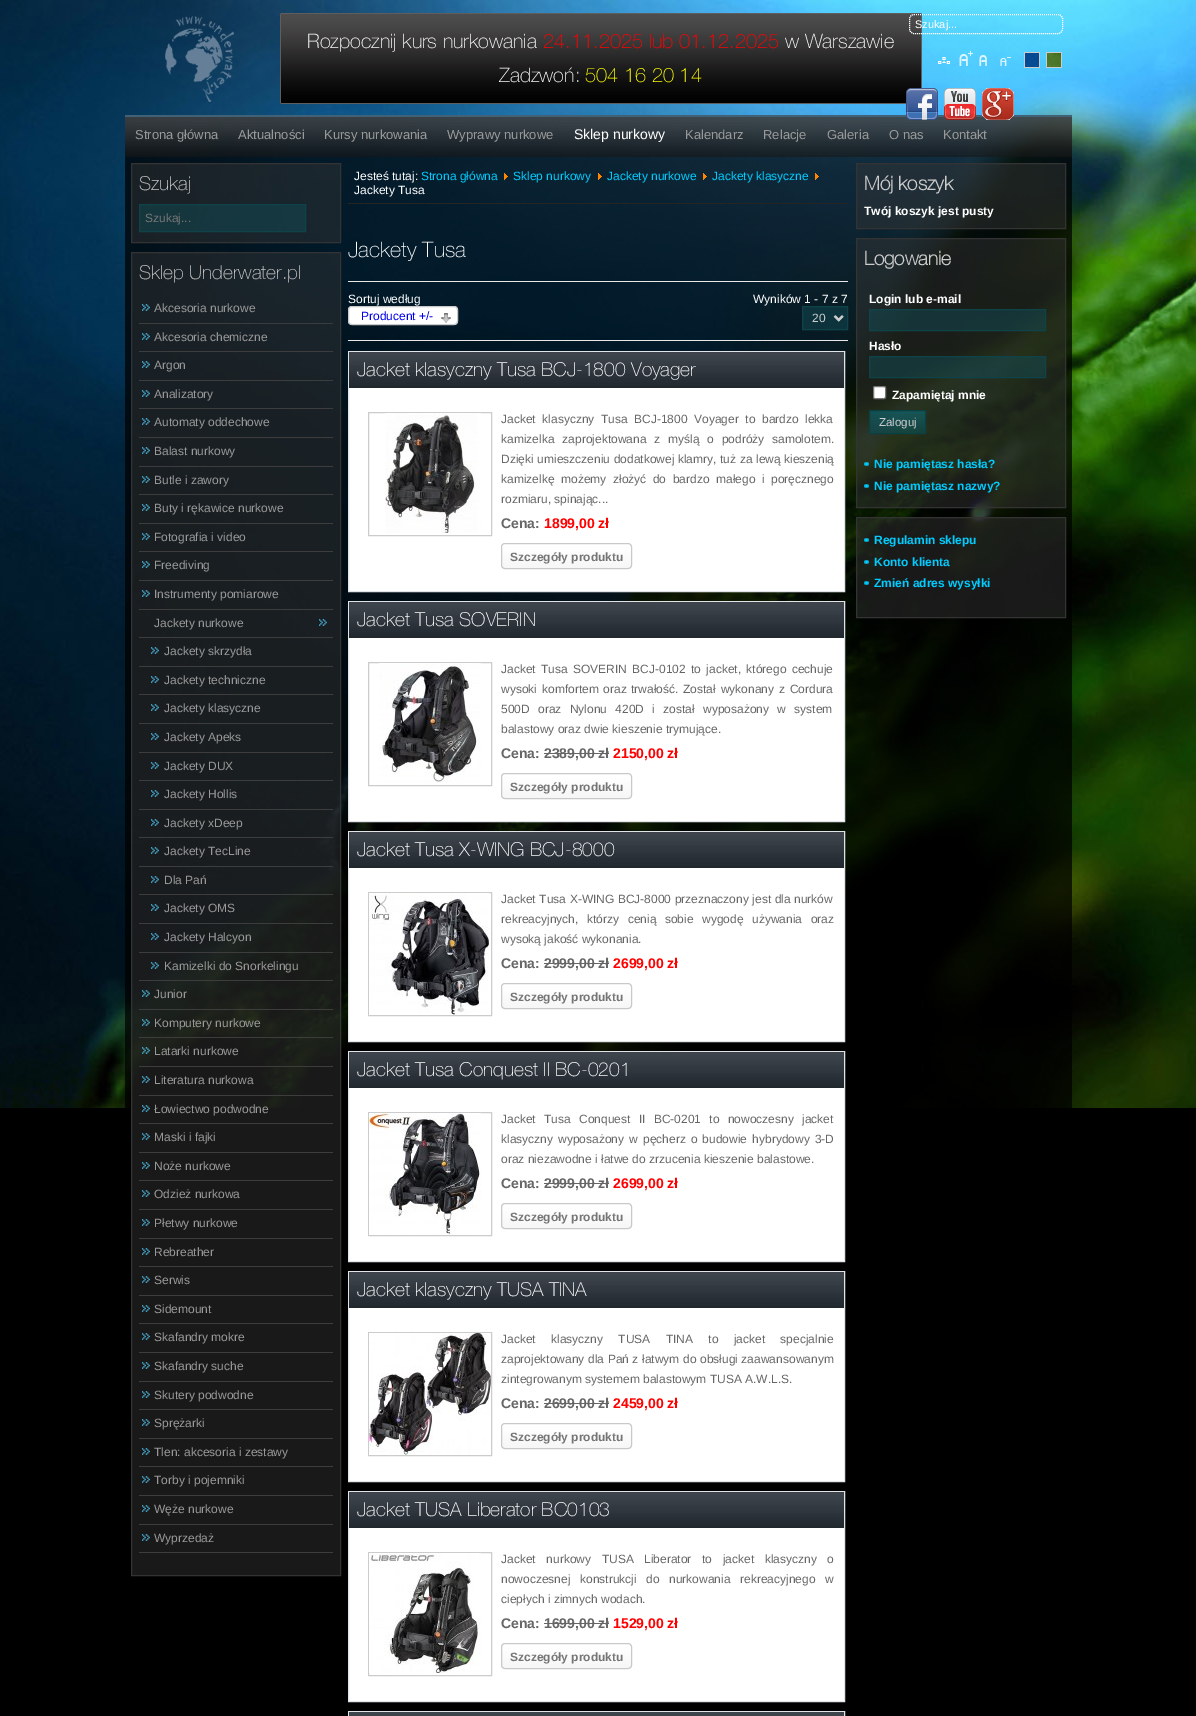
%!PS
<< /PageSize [1196 1716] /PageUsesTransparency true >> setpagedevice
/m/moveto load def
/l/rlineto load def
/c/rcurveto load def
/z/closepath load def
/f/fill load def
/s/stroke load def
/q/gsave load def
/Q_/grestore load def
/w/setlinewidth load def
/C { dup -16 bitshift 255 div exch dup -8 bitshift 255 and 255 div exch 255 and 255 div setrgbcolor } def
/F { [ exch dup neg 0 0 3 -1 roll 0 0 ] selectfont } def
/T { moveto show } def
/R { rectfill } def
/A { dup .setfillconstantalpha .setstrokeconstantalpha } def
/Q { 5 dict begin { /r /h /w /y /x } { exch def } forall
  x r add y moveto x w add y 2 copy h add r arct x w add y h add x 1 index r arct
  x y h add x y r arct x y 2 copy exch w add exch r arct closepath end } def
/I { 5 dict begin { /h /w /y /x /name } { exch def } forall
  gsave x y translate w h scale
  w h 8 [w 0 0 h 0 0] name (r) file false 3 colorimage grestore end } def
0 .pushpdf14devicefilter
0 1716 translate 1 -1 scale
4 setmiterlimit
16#000000 C
0 0 1196 1716 R
(1.rgb) 0 0 1196 1108 I
(2.rgb) 165 16 69 86 I
(9.rgb) 280 13 642 91 I
16#FFFFFF C
[1 1] 0 setdash
914 14.5 m 144 0 l 2.5 0 4.5 2 4.5 4.5 c 0 10 l 0 2.5 -2 4.5 -4.5 4.5 c -144 0 l -2.5 0 -4.5 -2 -4.5 -4.5 c 0 -10 l 0 -2.5 2 -4.5 4.5 -4.5 c z s
/LiberationSans-Regular 11 F
(Szukaj...) 915 28 T
(3.rgb) 938 57 12 7 I
(4.rgb) 959 51 14 15 I
(5.rgb) 979 55 8 11 I
(6.rgb) 1000 57 11 9 I
(7.rgb) 1024 52 16 16 I
(8.rgb) 1046 52 16 16 I
/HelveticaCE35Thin-Thin 20 F
(Rozpocznij kurs nurkowania) 307 48 T
16#FF0000 C
(24.11.2025 lub 01.12.2025) 543 48 T
16#FFFFFF C
(w Warszawie) 785 48 T
(Zadzwoń:) 499 82 T
16#FFFF00 C
(504 16 20 14) 585 82 T
0.72 A
16#000000 C
125 117 947 991 R
1 A
16#406176 C
125 115 947 2 R
(13.rgb) 125 117 947 40 I
(10.rgb) 906 88 32 32 I
(11.rgb) 944 88 32 32 I
(12.rgb) 982 88 32 32 I
/LiberationSans-Regular 13 F
16#999999 C
(Strona główna) 135 139 T
(Aktualności) 238 139 T
(Kursy nurkowania) 324 139 T
(Wyprawy nurkowe) 447 139 T
/LiberationSans-Regular 14 F
16#FFFFFF C
(Sklep nurkowy) 574 139 T
/LiberationSans-Regular 13 F
16#999999 C
(Kalendarz) 685 139 T
(Relacje) 763 139 T
(Galeria) 827 139 T
(O nas) 889 139 T
(Kontakt) 943 139 T
0.48 A
16#343434 C
131.5 163.5 m 209 0 l 0 79 l -209 0 l z f
1 A
16#333333 C
[] 0 setdash
131.5 163.5 m 209 0 l 0 79 l -209 0 l z s
/HelveticaCE35Thin-Thin 19.25 F
16#CCCCCC C
(Szukaj) 139 190 T
0.5 A
16#124A54 C
139.5 204.5 m 166 0 l 0 27 l -166 0 l z f
1 A
16#0E4449 C
139.5 204.5 m 166 0 l 0 27 l -166 0 l z s
/LiberationSans-Regular 12 F
16#757575 C
(Szukaj...) 145 222 T
0.48 A
16#343434 C
131.5 252.5 m 209 0 l 0 1323 l -209 0 l z f
1 A
16#333333 C
131.5 252.5 m 209 0 l 0 1323 l -209 0 l z s
/HelveticaCE35Thin-Thin 19.25 F
16#CCCCCC C
(Sklep Underwater.pl) 139 279 T
(14.rgb) 142 304 8 7 I
16#3E3D3D C
139 323 194 1 R
/LiberationSans-Regular 12 F
16#999999 C
(Akcesoria nurkowe) 154 312 T
(15.rgb) 142 333 8 7 I
16#3E3D3D C
139 351 194 1 R
16#999999 C
(Akcesoria chemiczne) 154 341 T
(16.rgb) 142 361 8 7 I
16#3E3D3D C
139 380 194 1 R
16#999999 C
(Argon) 154 369 T
(17.rgb) 142 390 8 7 I
16#3E3D3D C
139 408 194 1 R
16#999999 C
(Analizatory) 154 398 T
(18.rgb) 142 418 8 7 I
16#3E3D3D C
139 437 194 1 R
16#999999 C
(Automaty oddechowe) 154 426 T
(19.rgb) 142 447 8 7 I
16#3E3D3D C
139 466 194 1 R
16#999999 C
(Balast nurkowy) 154 455 T
(20.rgb) 142 476 8 7 I
16#3E3D3D C
139 494 194 1 R
16#999999 C
(Butle i zawory) 154 484 T
(21.rgb) 142 504 8 7 I
16#3E3D3D C
139 523 194 1 R
16#999999 C
(Buty i rękawice nurkowe) 154 512 T
(22.rgb) 142 533 8 7 I
16#3E3D3D C
139 551 194 1 R
16#999999 C
(Fotografia i video) 154 541 T
(23.rgb) 142 561 8 7 I
16#3E3D3D C
139 580 194 1 R
16#999999 C
(Freediving) 154 569 T
(24.rgb) 142 590 8 7 I
16#3E3D3D C
139 609 194 1 R
16#999999 C
(Instrumenty pomiarowe) 154 598 T
(25.rgb) 319 619 8 7 I
16#3E3D3D C
139 637 194 1 R
16#999999 C
(Jackety nurkowe) 154 627 T
(26.rgb) 151 647 8 7 I
16#3E3D3D C
139 666 194 1 R
16#999999 C
(Jackety skrzydła) 164 655 T
(27.rgb) 151 676 8 7 I
16#3E3D3D C
139 694 194 1 R
16#999999 C
(Jackety techniczne) 164 684 T
(28.rgb) 151 704 8 7 I
16#3E3D3D C
139 723 194 1 R
16#999999 C
(Jackety klasyczne) 164 712 T
(29.rgb) 151 733 8 7 I
16#3E3D3D C
139 752 194 1 R
16#999999 C
(Jackety Apeks) 164 741 T
(30.rgb) 151 762 8 7 I
16#3E3D3D C
139 780 194 1 R
16#999999 C
(Jackety DUX) 164 770 T
(31.rgb) 151 790 8 7 I
16#3E3D3D C
139 809 194 1 R
16#999999 C
(Jackety Hollis) 164 798 T
(32.rgb) 151 819 8 7 I
16#3E3D3D C
139 837 194 1 R
16#999999 C
(Jackety xDeep) 164 827 T
(33.rgb) 151 847 8 7 I
16#3E3D3D C
139 866 194 1 R
16#999999 C
(Jackety TecLine) 164 855 T
(34.rgb) 151 876 8 7 I
16#3E3D3D C
139 894 194 1 R
16#999999 C
(Dla Pań) 164 884 T
(35.rgb) 151 904 8 7 I
16#3E3D3D C
139 923 194 1 R
16#999999 C
(Jackety OMS) 164 912 T
(36.rgb) 151 933 8 7 I
16#3E3D3D C
139 952 194 1 R
16#999999 C
(Jackety Halcyon) 164 941 T
(37.rgb) 151 962 8 7 I
16#3E3D3D C
139 980 194 1 R
16#999999 C
(Kamizelki do Snorkelingu) 164 970 T
(38.rgb) 142 990 8 7 I
16#3E3D3D C
139 1009 194 1 R
16#999999 C
(Junior) 154 998 T
(39.rgb) 142 1019 8 7 I
16#3E3D3D C
139 1037 194 1 R
16#999999 C
(Komputery nurkowe) 154 1027 T
(40.rgb) 142 1047 8 7 I
16#3E3D3D C
139 1066 194 1 R
16#999999 C
(Latarki nurkowe) 154 1055 T
(41.rgb) 142 1076 8 7 I
16#3E3D3D C
139 1095 194 1 R
16#999999 C
(Literatura nurkowa) 154 1084 T
(42.rgb) 142 1105 8 7 I
16#3E3D3D C
139 1123 194 1 R
16#999999 C
(Łowiectwo podwodne) 154 1113 T
(43.rgb) 142 1133 8 7 I
16#3E3D3D C
139 1152 194 1 R
16#999999 C
(Maski i fajki) 154 1141 T
(43.rgb) 142 1162 8 7 I
16#3E3D3D C
139 1180 194 1 R
16#999999 C
(Noże nurkowe) 154 1170 T
(43.rgb) 142 1190 8 7 I
16#3E3D3D C
139 1209 194 1 R
16#999999 C
(Odzież nurkowa) 154 1198 T
(43.rgb) 142 1219 8 7 I
16#3E3D3D C
139 1238 194 1 R
16#999999 C
(Płetwy nurkowe) 154 1227 T
(43.rgb) 142 1248 8 7 I
16#3E3D3D C
139 1266 194 1 R
16#999999 C
(Rebreather) 154 1256 T
(43.rgb) 142 1276 8 7 I
16#3E3D3D C
139 1295 194 1 R
16#999999 C
(Serwis) 154 1284 T
(43.rgb) 142 1305 8 7 I
16#3E3D3D C
139 1323 194 1 R
16#999999 C
(Sidemount) 154 1313 T
(43.rgb) 142 1333 8 7 I
16#3E3D3D C
139 1352 194 1 R
16#999999 C
(Skafandry mokre) 154 1341 T
(43.rgb) 142 1362 8 7 I
16#3E3D3D C
139 1381 194 1 R
16#999999 C
(Skafandry suche) 154 1370 T
(43.rgb) 142 1391 8 7 I
16#3E3D3D C
139 1409 194 1 R
16#999999 C
(Skutery podwodne) 154 1399 T
(43.rgb) 142 1419 8 7 I
16#3E3D3D C
139 1438 194 1 R
16#999999 C
(Sprężarki) 154 1427 T
(43.rgb) 142 1448 8 7 I
16#3E3D3D C
139 1466 194 1 R
16#999999 C
(Tlen: akcesoria i zestawy) 154 1456 T
(43.rgb) 142 1476 8 7 I
16#3E3D3D C
139 1495 194 1 R
16#999999 C
(Torby i pojemniki) 154 1484 T
(43.rgb) 142 1505 8 7 I
16#3E3D3D C
139 1524 194 1 R
16#999999 C
(Węże nurkowe) 154 1513 T
(43.rgb) 142 1534 8 7 I
16#3E3D3D C
139 1552 194 1 R
16#999999 C
(Wyprzedaż) 154 1542 T
16#252525 C
348 203 500 1 R
16#FFFFFF C
(Jesteś tutaj:) 354 180 T
16#00CCFF C
(Strona główna) 421 180 T
(44.rgb) 504 173 4 7 I
(Sklep nurkowy) 513 180 T
(45.rgb) 598 173 4 7 I
(Jackety nurkowe) 607 180 T
(46.rgb) 703 173 4 7 I
(Jackety klasyczne) 712 180 T
(47.rgb) 815 173 4 7 I
16#FFFFFF C
(Jackety Tusa) 354 194 T
/HelveticaCE35Thin-Thin 21.5 F
(Jackety Tusa) 348 257 T
16#E9E8E8 C
348 281 500 1 R
348 340 500 1 R
/LiberationSans-Regular 12 F
16#FFFFFF C
(Sortuj według) 348 303 T
348 306 110 19 4 Q f
(48.rgb) 441 313 10 10 I
16#CAC9C9 C
348.5 306.5 109 18 3.5 Q s
16#0000EE C
(Producent +/-) 361 320 T
16#FFFFFF C
(Wyników 1 - 7 z 7) 753 303 T
(49.rgb) 803 307 44 22 I
16#0E4449 C
802.5 306.5 45 23 rectstroke
16#CCCCCC C
2 w
834.5 316 m 4 4 l 4 -4 l s
(20) 812 322 T
16#FFFFFF C
349 388 495 203 R
16#E1E4E9 C
1 w
348.5 351.5 496 240 rectstroke
(50.rgb) 349 352 495 36 I
/HelveticaCE35Thin-Thin 19.25 F
16#FFFFFF C
(Jacket klasyczny Tusa BCJ-1800 Voyager) 357 376 T
16#CCCCCC C
368.5 412.5 123 123 rectstroke
(51.rgb) 385 413 96 120 I
/LiberationSans-Regular 12 F
16#666666 C
501 423 m 3.25 0 32 (Jacket klasyczny Tusa BCJ-1800 Voyager to bardzo lekka) widthshow
501 443 m 4.5 0 32 (kamizelka zaprojektowana z myślą o podróży samolotem.) widthshow
501 463 m .25 0 32 (Dzięki umieszczeniu dodatkowej klamry, tuż za lewą kieszenią) widthshow
501 483 m 3.25 0 32 (kamizelkę możemy złożyć do bardzo małego i poręcznego) widthshow
(rozmiaru, spinając...) 501 503 T
/LiberationSans-Bold 14 F
(Cena:) 501 528 T
16#FF0000 C
(1899,00 zł) 544 528 T
(52.rgb) 501 544 131 25 I
16#CAC9C9 C
501.5 543.5 130 25 3.5 Q s
/LiberationSans-Bold 12 F
16#757575 C
(Szczegóły produktu) 510 561 T
16#FFFFFF C
349 638 495 183 R
16#E1E4E9 C
348.5 601.5 496 220 rectstroke
(50.rgb) 349 602 495 36 I
/HelveticaCE35Thin-Thin 19.25 F
16#FFFFFF C
(Jacket Tusa SOVERIN) 357 626 T
16#CCCCCC C
368.5 662.5 123 123 rectstroke
(53.rgb) 379 663 102 120 I
/LiberationSans-Regular 12 F
16#666666 C
501 673 m 2 0 32 (Jacket Tusa SOVERIN BCJ-0102 to jacket, którego cechuje) widthshow
501 693 m 1.5 0 32 (wysoki komfortem oraz) widthshow
631 693 m 1.5 0 32 (trwałość. Został wykonany z Cordura) widthshow
501 713 m 5 0 32 (500D oraz Nylonu 420D i został wyposażony w system) widthshow
(balastowy oraz dwie kieszenie trymujące.) 501 733 T
/LiberationSans-Bold 14 F
(Cena: 2389,00 zł) 501 758 T
544 753 65 1 R
16#FF0000 C
(2150,00 zł) 613 758 T
(52.rgb) 501 774 131 25 I
16#CAC9C9 C
501.5 773.5 130 25 3.5 Q s
/LiberationSans-Bold 12 F
16#757575 C
(Szczegóły produktu) 510 791 T
16#FFFFFF C
349 868 495 173 R
16#E1E4E9 C
348.5 831.5 496 210 rectstroke
(50.rgb) 349 832 495 36 I
/HelveticaCE35Thin-Thin 19.25 F
16#FFFFFF C
(Jacket Tusa X-WING BCJ-8000) 357 856 T
16#CCCCCC C
368.5 892.5 123 123 rectstroke
(54.rgb) 369 893 120 122 I
/LiberationSans-Regular 12 F
16#666666 C
501 903 m .25 0 32 (Jacket Tusa X-WING BCJ-8000 przeznaczony jest dla nurków) widthshow
501 923 m 5.25 0 32 (rekreacyjnych, którzy cenią sobie wygodę używania oraz) widthshow
(wysoką jakość wykonania.) 501 943 T
/LiberationSans-Bold 14 F
(Cena: 2999,00 zł) 501 968 T
544 963 65 1 R
16#FF0000 C
(2699,00 zł) 613 968 T
(52.rgb) 501 984 131 25 I
16#CAC9C9 C
501.5 983.5 130 25 3.5 Q s
/LiberationSans-Bold 12 F
16#757575 C
(Szczegóły produktu) 510 1001 T
16#FFFFFF C
349 1088 495 173 R
16#E1E4E9 C
348.5 1051.5 496 210 rectstroke
(50.rgb) 349 1052 495 36 I
/HelveticaCE35Thin-Thin 19.25 F
16#FFFFFF C
(Jacket Tusa Conquest II BC-0201) 357 1076 T
16#CCCCCC C
368.5 1112.5 123 123 rectstroke
(55.rgb) 369 1113 112 122 I
/LiberationSans-Regular 12 F
16#666666 C
501 1123 m 5 0 32 (Jacket Tusa Conquest II BC-0201 to nowoczesny jacket) widthshow
501 1143 m 1.75 0 32 (klasyczny wyposażony w pęcherz o budowie hybrydowy 3-D) widthshow
(oraz niezawodne i łatwe do zrzucenia kieszenie balastowe.) 501 1163 T
/LiberationSans-Bold 14 F
(Cena: 2999,00 zł) 501 1188 T
544 1183 65 1 R
16#FF0000 C
(2699,00 zł) 613 1188 T
(52.rgb) 501 1204 131 25 I
16#CAC9C9 C
501.5 1203.5 130 25 3.5 Q s
/LiberationSans-Bold 12 F
16#757575 C
(Szczegóły produktu) 510 1221 T
16#FFFFFF C
349 1308 495 173 R
16#E1E4E9 C
348.5 1271.5 496 210 rectstroke
(50.rgb) 349 1272 495 36 I
/HelveticaCE35Thin-Thin 19.25 F
16#FFFFFF C
(Jacket klasyczny TUSA TINA) 357 1296 T
16#CCCCCC C
368.5 1332.5 123 123 rectstroke
(56.rgb) 369 1333 122 122 I
/LiberationSans-Regular 12 F
16#666666 C
501 1343 m 12 0 32 (Jacket klasyczny TUSA TINA to jacket specjalnie) widthshow
501 1363 m .25 0 32 (zaprojektowany dla Pań z łatwym do obsługi zaawansowanym) widthshow
(zintegrowanym systemem balastowym TUSA A.W.L.S.) 501 1383 T
/LiberationSans-Bold 14 F
(Cena: 2699,00 zł) 501 1408 T
544 1403 65 1 R
16#FF0000 C
(2459,00 zł) 613 1408 T
(52.rgb) 501 1424 131 25 I
16#CAC9C9 C
501.5 1423.5 130 25 3.5 Q s
/LiberationSans-Bold 12 F
16#757575 C
(Szczegóły produktu) 510 1441 T
16#FFFFFF C
349 1528 495 173 R
16#E1E4E9 C
348.5 1491.5 496 210 rectstroke
(50.rgb) 349 1492 495 36 I
/HelveticaCE35Thin-Thin 19.25 F
16#FFFFFF C
(Jacket TUSA Liberator BC0103) 357 1516 T
16#CCCCCC C
368.5 1552.5 123 123 rectstroke
(57.rgb) 369 1553 112 120 I
/LiberationSans-Regular 12 F
16#666666 C
501 1563 m 7.25 0 32 (Jacket nurkowy TUSA Liberator to jacket klasyczny o) widthshow
501 1583 m 6.25 0 32 (nowoczesnej konstrukcji do nurkowania rekreacyjnego w) widthshow
(ciepłych i zimnych wodach.) 501 1603 T
/LiberationSans-Bold 14 F
(Cena: 1699,00 zł) 501 1628 T
544 1623 65 1 R
16#FF0000 C
(1529,00 zł) 613 1628 T
(52.rgb) 501 1644 131 25 I
16#CAC9C9 C
501.5 1643.5 130 25 3.5 Q s
/LiberationSans-Bold 12 F
16#757575 C
(Szczegóły produktu) 510 1661 T
16#E1E4E9 C
348.5 1711.5 496 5 rectstroke
16#3D444C C
349 1712 495 4 R
0.48 A
16#343434 C
856.5 163.5 m 209 0 l 0 65 l -209 0 l z f
1 A
16#333333 C
856.5 163.5 m 209 0 l 0 65 l -209 0 l z s
/HelveticaCE35Thin-Bold 19.25 F
16#CCCCCC C
(Mój koszyk) 864 190 T
/LiberationSans-Bold 12 F
16#FFFFFF C
(Twój koszyk jest pusty) 864 215 T
0.48 A
16#343434 C
856.5 238.5 m 209 0 l 0 269 l -209 0 l z f
1 A
16#333333 C
856.5 238.5 m 209 0 l 0 269 l -209 0 l z s
/HelveticaCE35Thin-Bold 19.25 F
16#CCCCCC C
(Logowanie) 864 265 T
/LiberationSans-Bold 12 F
16#FFFFFF C
(Login lub e-mail) 869 303 T
0.5 A
16#124A54 C
869.5 309.5 m 176 0 l 0 21 l -176 0 l z f
1 A
16#0E4449 C
869.5 309.5 m 176 0 l 0 21 l -176 0 l z s
16#FFFFFF C
(Hasło) 869 350 T
0.5 A
16#124A54 C
869.5 356.5 m 176 0 l 0 21 l -176 0 l z f
1 A
16#0E4449 C
869.5 356.5 m 176 0 l 0 21 l -176 0 l z s
16#FFFFFF C
873.5 386.5 12 12 1.5 Q q f Q_
16#767676 C
s
16#FFFFFF C
(Zapamiętaj mnie) 892 399 T
(58.rgb) 870 411 55 22 I
16#094044 C
869.5 410.5 56 23 rectstroke
/LiberationSans-Regular 11.5 F
16#CCCCCC C
(Zaloguj) 879 426 T
(59.rgb) 864 462 5 4 I
/LiberationSans-Bold 12 F
16#00CCFF C
(Nie pamiętasz hasła?) 874 468 T
(60.rgb) 864 484 5 4 I
(Nie pamiętasz nazwy?) 874 490 T
0.48 A
16#343434 C
856.5 517.5 m 209 0 l 0 100 l -209 0 l z f
1 A
16#333333 C
856.5 517.5 m 209 0 l 0 100 l -209 0 l z s
(61.rgb) 864 538 5 4 I
16#00CCFF C
(Regulamin sklepu) 874 544 T
(62.rgb) 864 560 5 4 I
(Konto klienta) 874 566 T
(63.rgb) 864 581 5 4 I
(Zmień adres wysyłki) 874 587 T
.poppdf14devicefilter showpage
